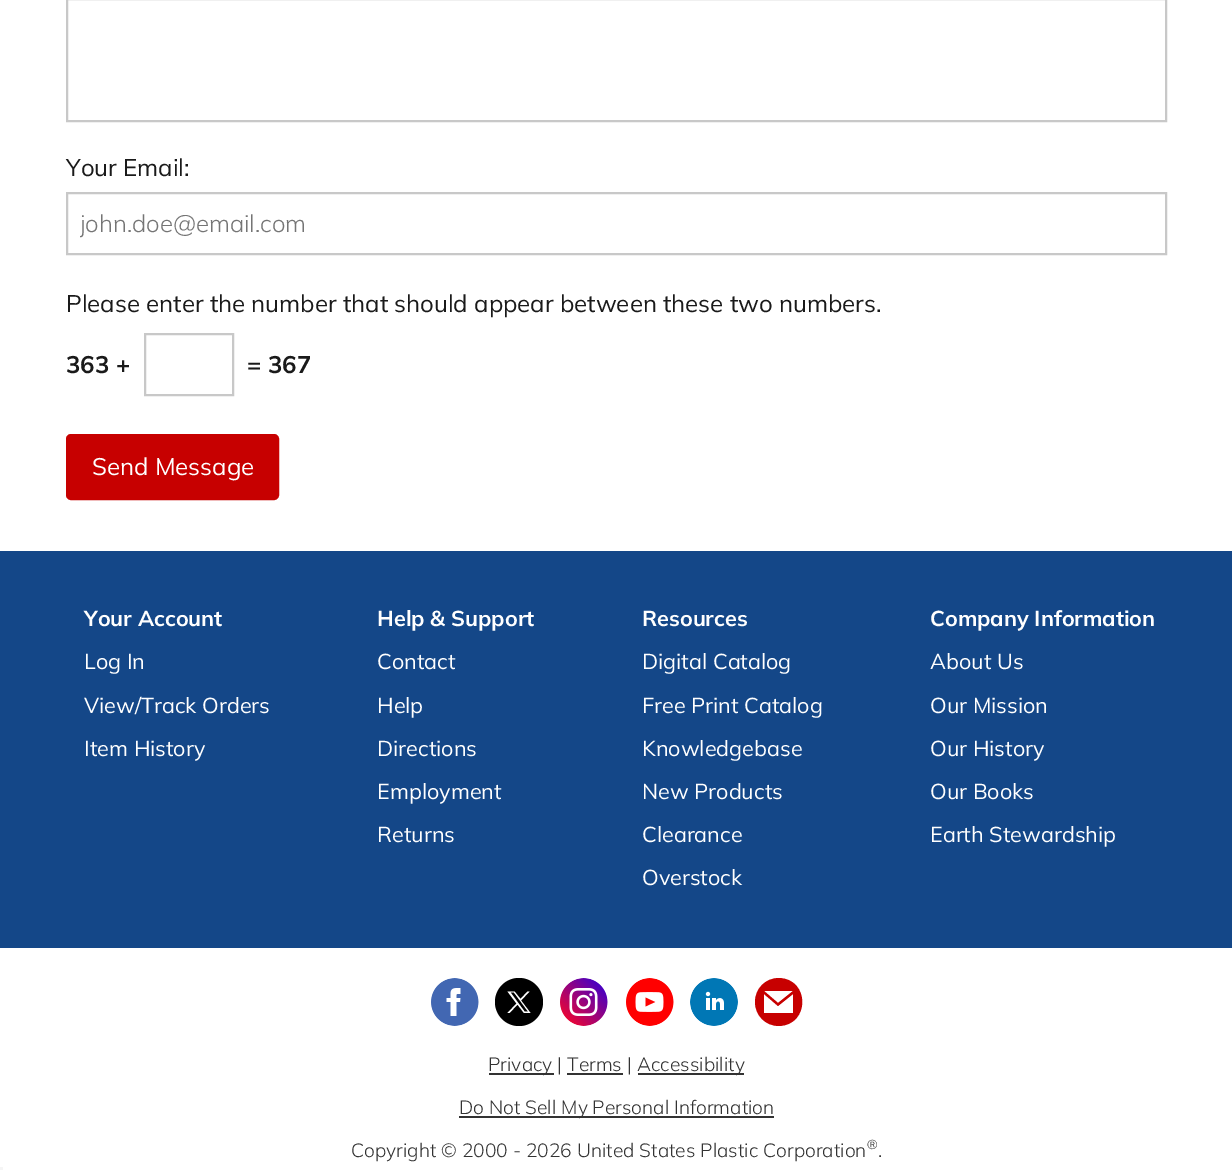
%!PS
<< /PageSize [1232 1170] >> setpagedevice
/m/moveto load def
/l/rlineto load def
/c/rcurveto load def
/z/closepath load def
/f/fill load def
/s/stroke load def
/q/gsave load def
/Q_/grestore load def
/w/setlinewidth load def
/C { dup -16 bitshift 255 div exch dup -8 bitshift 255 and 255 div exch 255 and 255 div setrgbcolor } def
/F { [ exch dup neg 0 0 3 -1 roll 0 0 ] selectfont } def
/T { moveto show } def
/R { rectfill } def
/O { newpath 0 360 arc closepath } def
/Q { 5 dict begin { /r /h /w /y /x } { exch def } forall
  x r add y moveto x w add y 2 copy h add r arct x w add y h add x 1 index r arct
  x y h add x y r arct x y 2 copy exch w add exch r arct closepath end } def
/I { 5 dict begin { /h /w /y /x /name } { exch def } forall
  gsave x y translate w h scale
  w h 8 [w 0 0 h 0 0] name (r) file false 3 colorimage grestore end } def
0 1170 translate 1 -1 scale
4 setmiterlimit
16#FFFFFF C
0 0 1232 1170 R
16#C8C8C8 C
2 w
67 -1 1099 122 rectstroke
/Mulish-Regular 24 F
16#1A1A1A C
(Your Email:) 66 176 T
16#C8C8C8 C
67 193 1099 61 rectstroke
q
80 209 1074 30 rectclip
/Mulish-Light 24 F
16#757575 C
(john.doe@email.com) 80 232 T
Q_
16#1A1A1A C
(Please enter the number that should appear between these two numbers.) 66 312 T
/Mulish-Bold 24 F
(363 +) 66 373 T
16#C8C8C8 C
145 334 88 61 rectstroke
16#1A1A1A C
(= 367) 247 373 T
16#C70000 C
67 435 211 64 4 Q q f Q_
s
/Mulish-Regular 24 F
16#FFFFFF C
(Send Message) 92 475 T
16#144788 C
0 551 1232 397 R
/Mulish-Bold 21.6 F
16#FFFFFF C
(Your Account) 84 626 T
/Mulish-Regular 21.6 F
(Log In) 84 669 T
(View/Track Orders) 84 713 T
(Item History) 84 756 T
/Mulish-Bold 21.6 F
(Help & Support) 377 626 T
/Mulish-Regular 21.6 F
(Contact) 377 669 T
(Help) 377 713 T
(Directions) 377 756 T
(Employment) 377 799 T
(Returns) 377 842 T
/Mulish-Bold 21.6 F
(Resources) 642 626 T
/Mulish-Regular 21.6 F
(Digital Catalog) 642 669 T
(Free Print Catalog) 642 713 T
(Knowledgebase) 642 756 T
(New Products) 642 799 T
(Clearance) 642 842 T
(Overstock) 642 885 T
/Mulish-Bold 21.6 F
(Company Information) 930 626 T
/Mulish-Regular 21.6 F
(About Us) 930 669 T
(Our Mission) 930 713 T
(Our History) 930 756 T
(Our Books) 930 799 T
(Earth Stewardship) 930 842 T
(1.rgb) 431 978 48 48 I
16#000000 C
519 1002 24 O f
16#FFFFFF C
507.5 991.5 m 9 12 l -9 9.5 l 2 0 l 8 -8.5 l 6.5 8.5 l 6.5 0 l -9.5 -12.5 l 8.5 -9 l -2 0 l -7 7.5 l -6 -7.5 l z 510.5 992.5 m 3.5 0 l 14 19 l -3.5 0 l z f
(2.rgb) 560 978 48 48 I
(3.rgb) 626 978 48 48 I
(4.rgb) 690 978 48 48 I
16#C70000 C
779 978 m -14 0 -24 11 -24 24 c 0 13 10 24 24 24 c 31 -1 31 -47 0 -48 c z 793 991 m -29 0 l 14 12 l z 793 1013 m 0 -19 l -15 12 l -14 -12 l 0 19 l z eofill
16#333333 C
489 1073 65 2 R
/Mulish-Light 19.2 F
(Privacy | Terms |) 488 1071 T
638 1073 106 2 R
(Accessibility) 637 1071 T
567 1073 56 2 R
459 1116 315 2 R
(Do Not Sell My Personal Information) 459 1114 T
(Copyright © 2000 - 2026 United States Plastic Corporation) 351 1157 T
/Mulish-Light 13 F
(®) 867 1149 T
/Mulish-Light 19.2 F
(.) 878 1157 T
16#F5F5F5 C
0 1167 3 3 R
showpage
